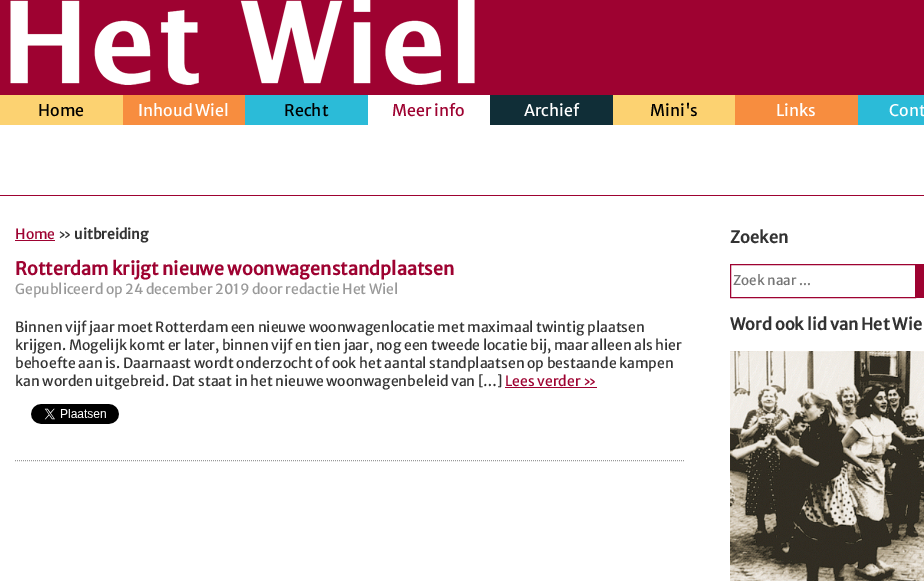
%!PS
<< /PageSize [924 582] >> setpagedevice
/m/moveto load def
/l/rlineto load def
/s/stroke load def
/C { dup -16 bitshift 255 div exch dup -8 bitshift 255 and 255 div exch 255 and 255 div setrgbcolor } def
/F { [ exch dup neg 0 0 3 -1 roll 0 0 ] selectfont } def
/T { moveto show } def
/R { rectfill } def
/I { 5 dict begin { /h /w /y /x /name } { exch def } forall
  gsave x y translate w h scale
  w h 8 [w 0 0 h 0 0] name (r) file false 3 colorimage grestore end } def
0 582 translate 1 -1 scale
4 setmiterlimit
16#FFFFFF C
0 0 924 582 R
16#9E0231 C
0 0 924 95 R
(1.rgb) 10 0 465 85 I
0 195 924 1 R
16#FCD271 C
0 95 123 30 R
/MerriweatherSans-Regular 16 F
16#000000 C
(Home) 38 116 T
16#F78D3F C
123 95 122 30 R
16#FFFFFF C
(Inhoud Wiel) 138 116 T
16#2BBBD8 C
245 95 123 30 R
16#000000 C
(Recht) 284 116 T
16#9E0231 C
(Meer info) 392 116 T
16#102E37 C
490 95 123 30 R
16#FFFFFF C
(Archief) 524 116 T
16#FCD271 C
613 95 122 30 R
16#000000 C
(Mini's) 650 116 T
16#F78D3F C
735 95 123 30 R
16#FFFFFF C
(Links) 776 116 T
16#2BBBD8 C
858 95 66 30 R
16#FFFFFF C
(Cont) 889 116 T
/MerriweatherSans-Regular 14 F
16#9E0231 C
(Home) 15 239 T
15 240 40 1 R
16#333333 C
(») 58 239 T
/MerriweatherSans-Bold 14 F
(uitbreiding) 74 239 T
16#999999 C
[1 1] 0 setdash
15 460.5 m 670 0 l s
/MerriweatherSans-Bold 18 F
16#9E0231 C
(Rotterdam krijgt nieuwe woonwagenstandplaatsen) 15 275 T
/MerriweatherSans-Regular 14 F
16#999999 C
(Gepubliceerd op 24 december 2019 door redactie Het Wiel) 15 294 T
16#333333 C
(Binnen vijf jaar moet Rotterdam een nieuwe woonwagenlocatie met maximaal twintig plaatsen) 15 332 T
(krijgen. Mogelijk komt er later, binnen vijf en tien jaar, nog een tweede locatie bij, maar alleen als hier) 15 350 T
(behoefte aan is. Daarnaast wordt onderzocht of ook het aantal standplaatsen op bestaande kampen) 15 368 T
(kan worden uitgebreid. Dat staat in het nieuwe woonwagenbeleid van […]) 15 386 T
16#9E0231 C
(Lees verder ») 505 386 T
505 387 92 1 R
(2.rgb) 31 404 88 20 I
/MerriweatherSans-Bold 16.4 F
16#333333 C
(Zoeken) 730 243 T
16#9E0231 C
[] 0 setdash
730.5 264.5 185 33 rectstroke
/MerriweatherSans-Regular 13.5 F
16#757575 C
(Zoek naar ...) 733 285 T
16#9E0231 C
916 264 8 34 R
/MerriweatherSans-Bold 16.4 F
16#333333 C
(Word ook lid van Het Wie) 730 330 T
(3.rgb) 730 351 194 230 I
showpage
